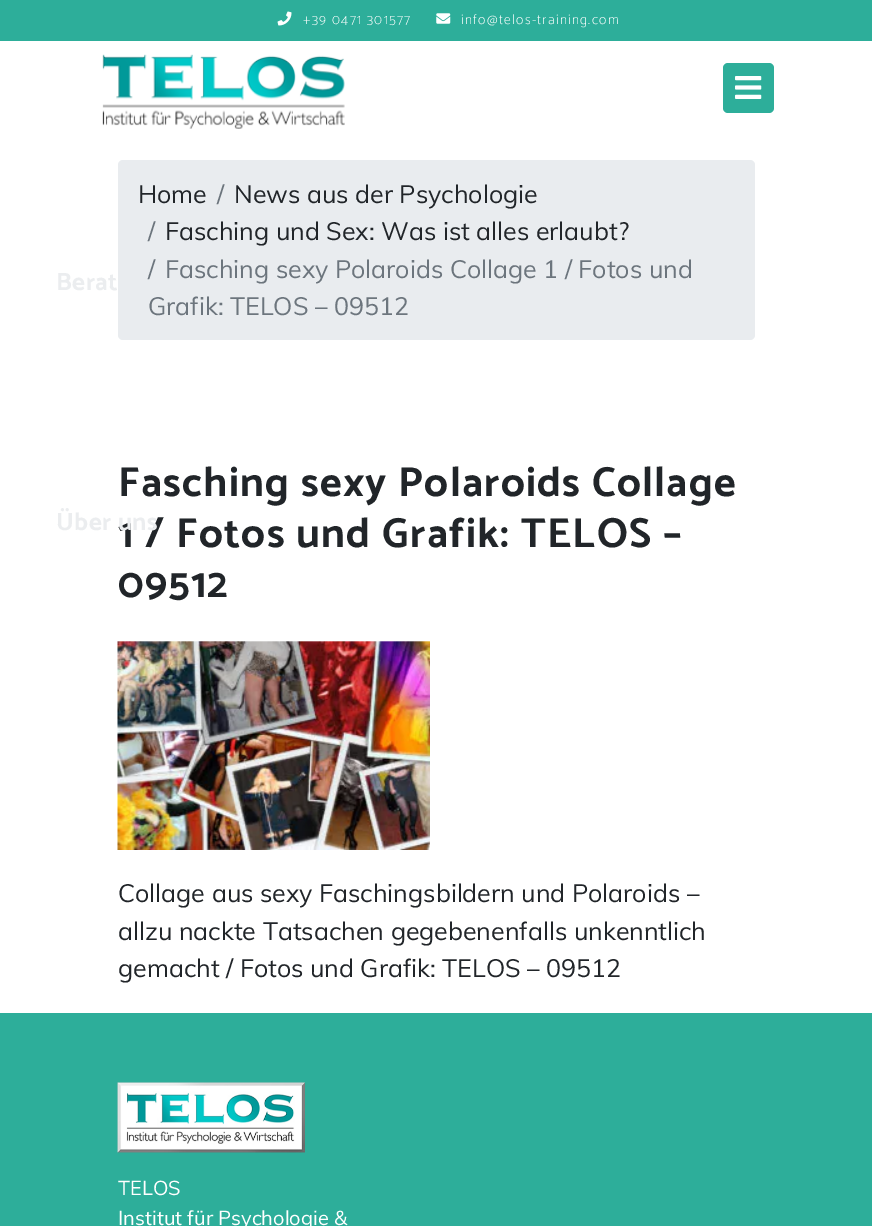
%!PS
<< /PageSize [872 1226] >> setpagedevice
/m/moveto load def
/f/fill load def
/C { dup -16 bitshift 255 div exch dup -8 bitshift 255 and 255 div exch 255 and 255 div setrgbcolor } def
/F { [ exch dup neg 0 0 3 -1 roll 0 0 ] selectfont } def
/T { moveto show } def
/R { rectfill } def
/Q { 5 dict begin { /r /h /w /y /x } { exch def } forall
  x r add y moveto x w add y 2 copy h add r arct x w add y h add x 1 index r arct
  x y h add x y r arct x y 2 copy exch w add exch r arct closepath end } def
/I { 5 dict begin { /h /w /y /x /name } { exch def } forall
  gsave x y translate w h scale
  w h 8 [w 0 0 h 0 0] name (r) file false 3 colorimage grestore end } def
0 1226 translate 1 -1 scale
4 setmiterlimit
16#FFFFFF C
0 0 872 1226 R
16#2DAE9A C
0 0 872 41 R
(1.rgb) 277 11 15 15 I
/Catamaran-Thin 14 F
16#FFFFFF C
303 24 m 1.25 0 (+39 0471 301577) ashow
(2.rgb) 436 13 15 11 I
461 24 m 1.25 0 (info@telos-training.com) ashow
(3.rgb) 102 54 243 75 I
16#2DAE9A C
723 63 51 50 5 Q f
(4.rgb) 735 76 27 23 I
16#E9ECEF C
118 160 637 180 5 Q f
/Catamaran-Bold 25 F
16#EBEDEF C
56 290 m .5 0 (Berat) ashow
/Catamaran-Bold 42 F
16#212529 C
118 547 m 1.25 0 (1 / Fotos und Grafik: TELOS –) ashow
/Catamaran-Bold 25 F
16#EBEDEF C
56 530 m .5 0 (Über uns) ashow
/Muli-Regular 25 F
16#212529 C
(Home) 138 203 T
16#6C757D C
(/) 217 203 T
16#212529 C
(News aus der Psychologie) 234 203 T
16#6C757D C
(/) 148 240 T
16#212529 C
(Fasching und Sex: Was ist alles erlaubt?) 165 240 T
16#6C757D C
(/) 148 278 T
(Fasching sexy Polaroids Collage 1 / Fotos und) 165 278 T
(Grafik: TELOS – 09512) 148 315 T
/Catamaran-Bold 42 F
16#212529 C
118 496 m 1.25 0 (Fasching sexy Polaroids Collage) ashow
118 597 m 1.25 0 (09512) ashow
(5.rgb) 117 641 313 209 I
/Muli-Regular 25 F
(Collage aus sexy Faschingsbildern und Polaroids –) 118 902 T
(allzu nackte Tatsachen gegebenenfalls unkenntlich) 118 940 T
(gemacht / Fotos und Grafik: TELOS – 09512) 118 977 T
16#2DAE9A C
0 1013 872 213 R
(6.rgb) 117 1082 188 71 I
/Muli-Regular 20 F
16#FFFFFF C
(TELOS) 118 1195 T
(Institut für Psychologie &) 118 1225 T
showpage
